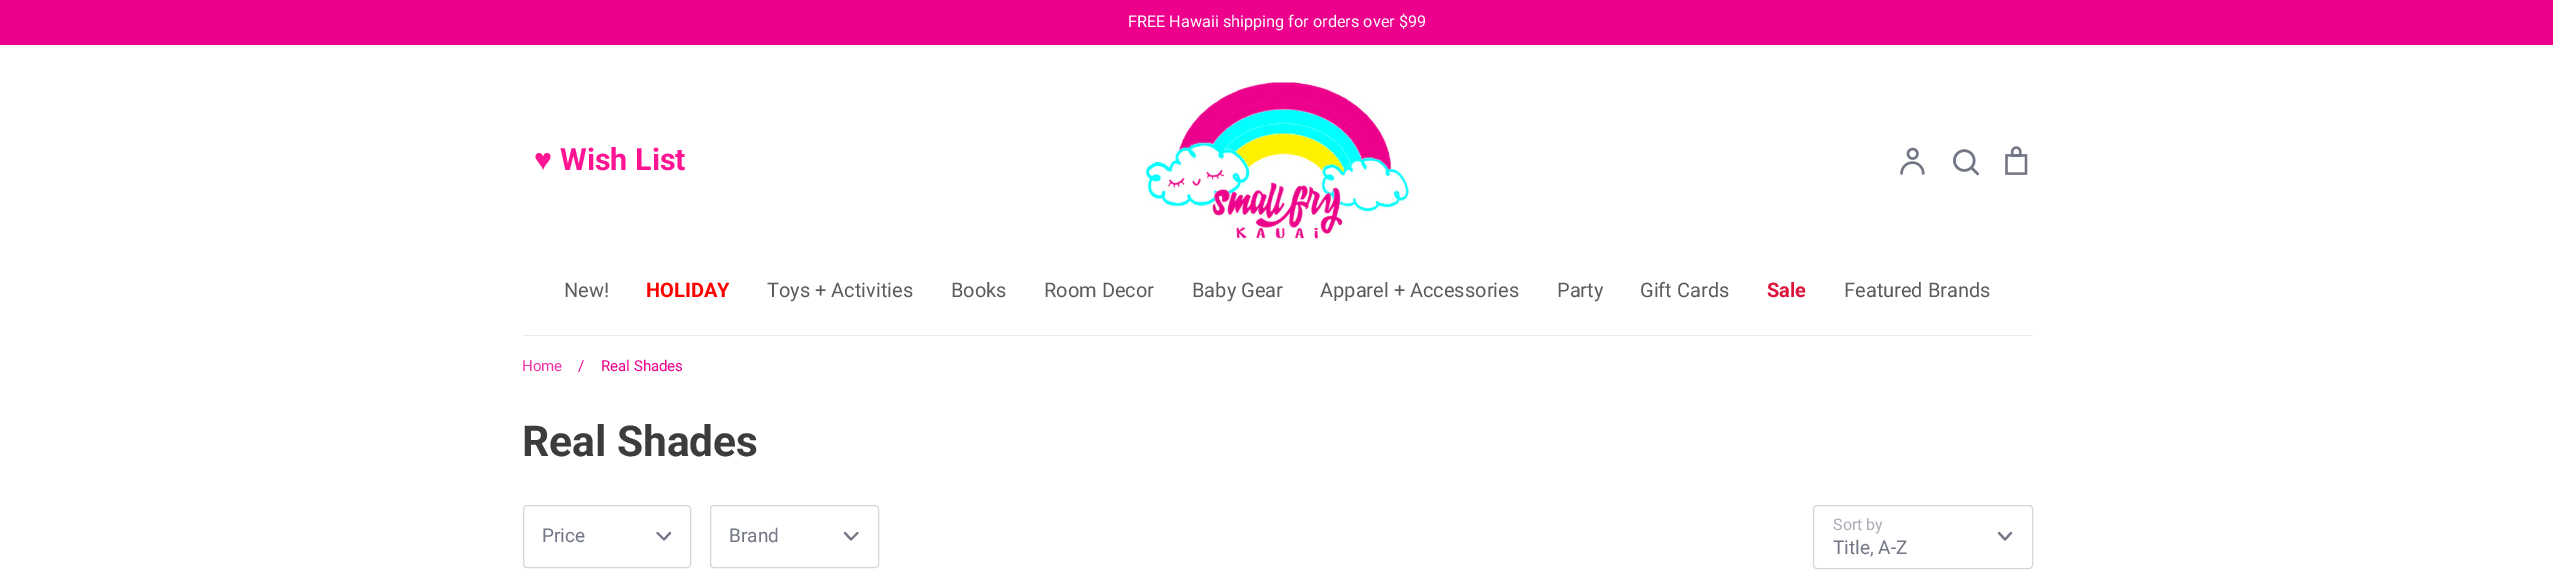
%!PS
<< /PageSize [2553 571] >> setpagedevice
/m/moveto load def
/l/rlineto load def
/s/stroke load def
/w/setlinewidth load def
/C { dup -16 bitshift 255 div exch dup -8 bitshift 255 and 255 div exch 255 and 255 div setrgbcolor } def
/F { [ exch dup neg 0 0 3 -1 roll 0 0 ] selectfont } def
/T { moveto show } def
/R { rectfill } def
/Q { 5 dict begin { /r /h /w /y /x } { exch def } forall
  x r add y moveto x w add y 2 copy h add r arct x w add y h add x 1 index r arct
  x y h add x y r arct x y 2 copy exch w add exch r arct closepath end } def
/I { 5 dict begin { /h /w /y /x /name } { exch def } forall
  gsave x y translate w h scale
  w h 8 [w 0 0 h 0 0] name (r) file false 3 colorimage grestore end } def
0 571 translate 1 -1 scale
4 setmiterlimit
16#FFFFFF C
0 0 2553 571 R
16#EC008C C
0 0 2553 45 R
/Roboto-Regular 16.25 F
16#FFFFFF C
(FREE Hawaii shipping for orders over $99) 1128 27 T
/LiberationSans-Bold 30.5 F
16#FF1493 C
(♥) 534 170 T
/Roboto-Bold 30.5 F
(Wish List) 560 170 T
(1.rgb) 1146 82 263 157 I
(2.rgb) 1900 147 25 28 I
(3.rgb) 1953 149 27 27 I
(4.rgb) 2005 146 23 29 I
16#EAEAED C
523 335 1510 1 R
/Roboto-Regular 20 F
16#5C5C5F C
(New!) 564 297 T
/Roboto-Bold 20 F
16#FF0000 C
(HOLIDAY) 646 297 T
/Roboto-Regular 20 F
16#5C5C5F C
(Toys + Activities) 767 297 T
(Books) 951 297 T
(Room Decor) 1044 297 T
(Baby Gear) 1192 297 T
(Apparel + Accessories) 1320 297 T
(Party) 1557 297 T
(Gift Cards) 1640 297 T
/Roboto-Bold 20 F
16#DC143C C
(Sale) 1767 297 T
/Roboto-Regular 20 F
16#5C5C5F C
(Featured Brands) 1844 297 T
/Roboto-Regular 15 F
16#F033A3 C
(Home) 522 371 T
16#EC008C C
(/) 578 371 T
(Real Shades) 601 371 T
/Roboto-Bold 42.5 F
16#3C3C3C C
(Real Shades) 522 456 T
16#D5D6DA C
523.5 505.5 167 62 3.5 Q s
/Roboto-Regular 19 F
16#727685 C
(Price) 542 542 T
2.1 w
1 setlinecap
1 setlinejoin
657.5 533 m 6.5 6.5 l 6 -6.5 l s
16#D5D6DA C
1 w
0 setlinecap
0 setlinejoin
710.5 505.5 168 62 3.5 Q s
16#727685 C
(Brand) 729 542 T
2.1 w
1 setlinecap
1 setlinejoin
845 533 m 6 6.5 l 6.5 -6.5 l s
16#D5D6DA C
1 w
0 setlinecap
0 setlinejoin
1813.5 505.5 219 63 3.5 Q s
/Roboto-Regular 16 F
16#AAADB6 C
(Sort by) 1833 530 T
16#727685 C
2.1 w
1 setlinecap
1 setlinejoin
1999 533 m 6 6.5 l 6 -6.5 l s
/Roboto-Regular 19 F
(Title, A-Z) 1833 554 T
showpage
